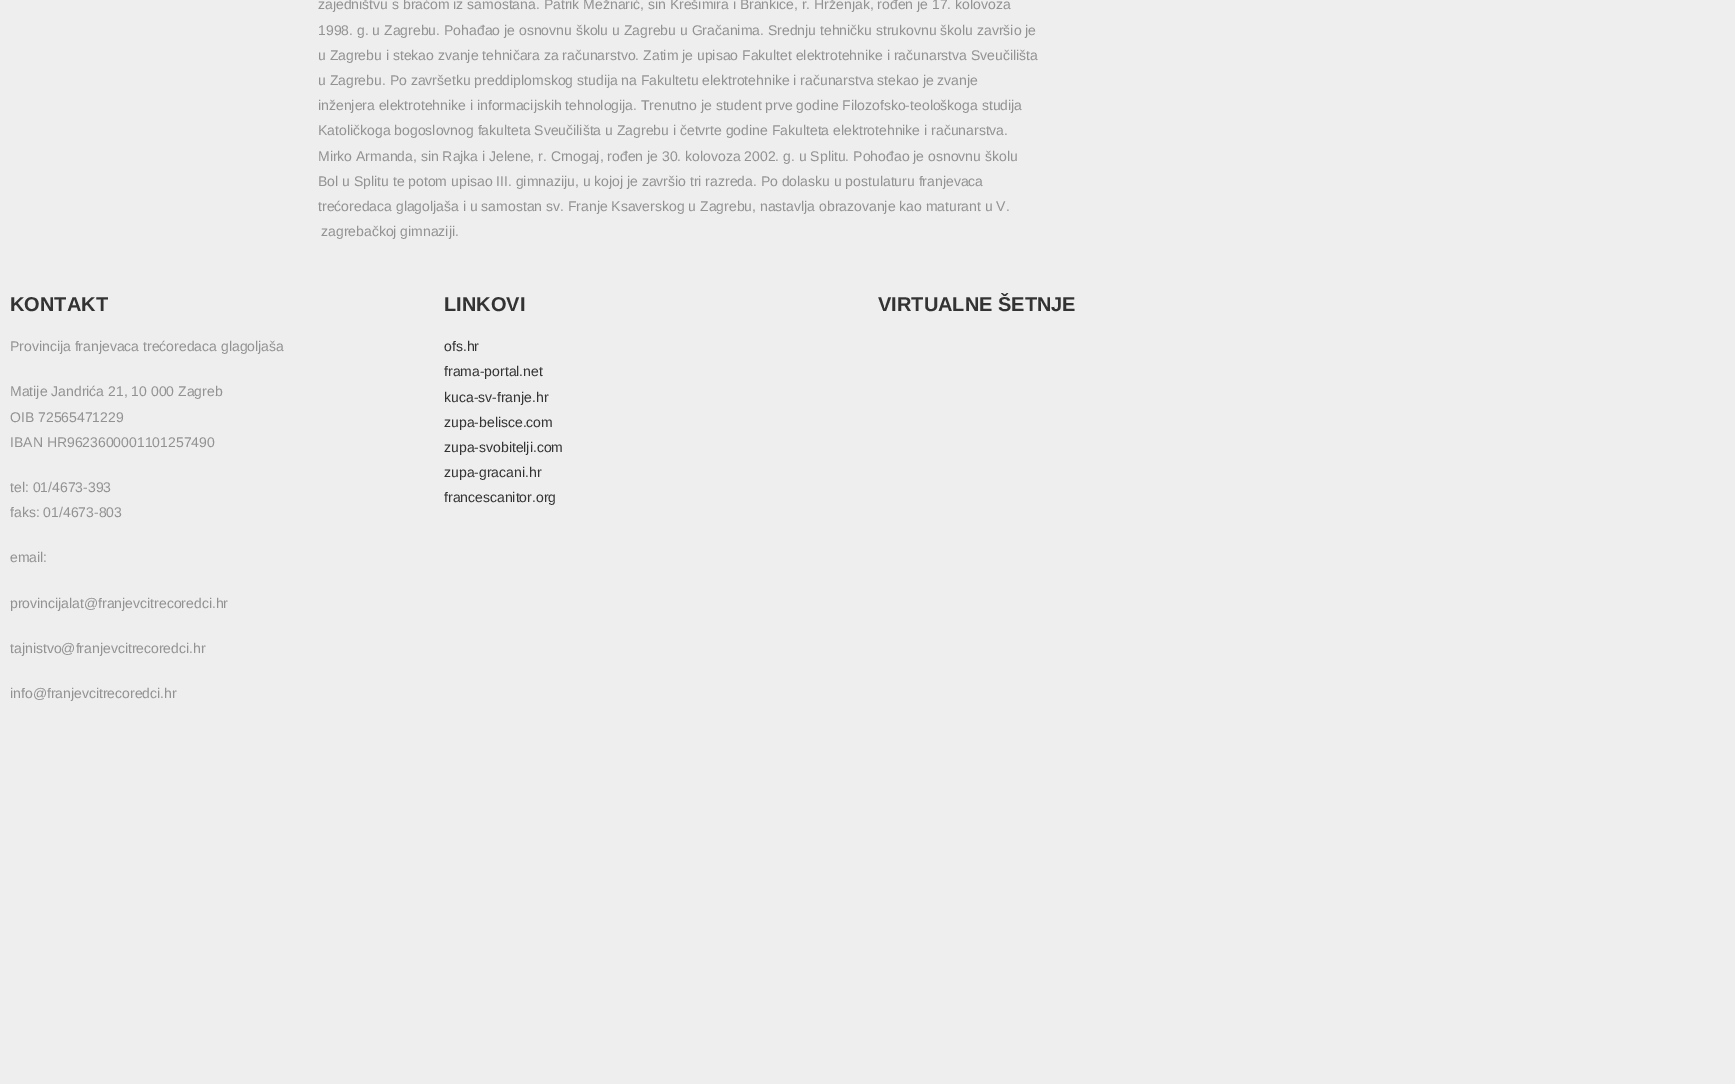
%!PS
<< /PageSize [1735 1084] >> setpagedevice
/C { dup -16 bitshift 255 div exch dup -8 bitshift 255 and 255 div exch 255 and 255 div setrgbcolor } def
/F { [ exch dup neg 0 0 3 -1 roll 0 0 ] selectfont } def
/T { moveto show } def
/R { rectfill } def
0 1084 translate 1 -1 scale
4 setmiterlimit
16#EEEEEE C
0 0 1735 1084 R
/LiberationSans-Regular 14 F
16#929292 C
(zajedništvu s braćom iz samostana. Patrik Mežnarić, sin Krešimira i Brankice, r. Hrženjak, rođen je 17. kolovoza) 318 9 T
(1998. g. u Zagrebu. Pohađao je osnovnu školu u Zagrebu u Gračanima. Srednju tehničku strukovnu školu završio je) 318 35 T
(u Zagrebu i stekao zvanje tehničara za računarstvo. Zatim je upisao Fakultet elektrotehnike i računarstva Sveučilišta) 318 60 T
(u Zagrebu. Po završetku preddiplomskog studija na Fakultetu elektrotehnike i računarstva stekao je zvanje) 318 85 T
(inženjera elektrotehnike i informacijskih tehnologija. Trenutno je student prve godine Filozofsko-teološkoga studija) 318 110 T
(Katoličkoga bogoslovnog fakulteta Sveučilišta u Zagrebu i četvrte godine Fakulteta elektrotehnike i računarstva.) 318 135 T
(Mirko Armanda, sin Rajka i Jelene, r. Crnogaj, rođen je 30. kolovoza 2002. g. u Splitu. Pohođao je osnovnu školu) 318 161 T
(Bol u Splitu te potom upisao III. gimnaziju, u kojoj je završio tri razreda. Po dolasku u postulaturu franjevaca) 318 186 T
(trećoredaca glagoljaša i u samostan sv. Franje Ksaverskog u Zagrebu, nastavlja obrazovanje kao maturant u V.) 318 211 T
(zagrebačkoj gimnaziji.) 321 236 T
/LiberationSans-Bold 20 F
16#333333 C
(KONTAKT) 10 311 T
/LiberationSans-Regular 14 F
16#929292 C
(Provincija franjevaca trećoredaca glagoljaša) 10 351 T
(Matije Jandrića 21, 10 000 Zagreb) 10 396 T
(OIB 72565471229) 10 422 T
(IBAN HR9623600001101257490) 10 447 T
(tel: 01/4673-393) 10 492 T
(faks: 01/4673-803) 10 517 T
(email:) 10 562 T
(provincijalat@franjevcitrecoredci.hr) 10 608 T
(tajnistvo@franjevcitrecoredci.hr) 10 653 T
(info@franjevcitrecoredci.hr) 10 698 T
/LiberationSans-Bold 20 F
16#333333 C
(LINKOVI) 444 311 T
/LiberationSans-Regular 14 F
(ofs.hr) 444 351 T
(frama-portal.net) 444 376 T
(kuca-sv-franje.hr) 444 402 T
(zupa-belisce.com) 444 427 T
(zupa-svobitelji.com) 444 452 T
(zupa-gracani.hr) 444 477 T
(francescanitor.org) 444 502 T
/LiberationSans-Bold 20 F
(VIRTUALNE ŠETNJE) 878 311 T
showpage
